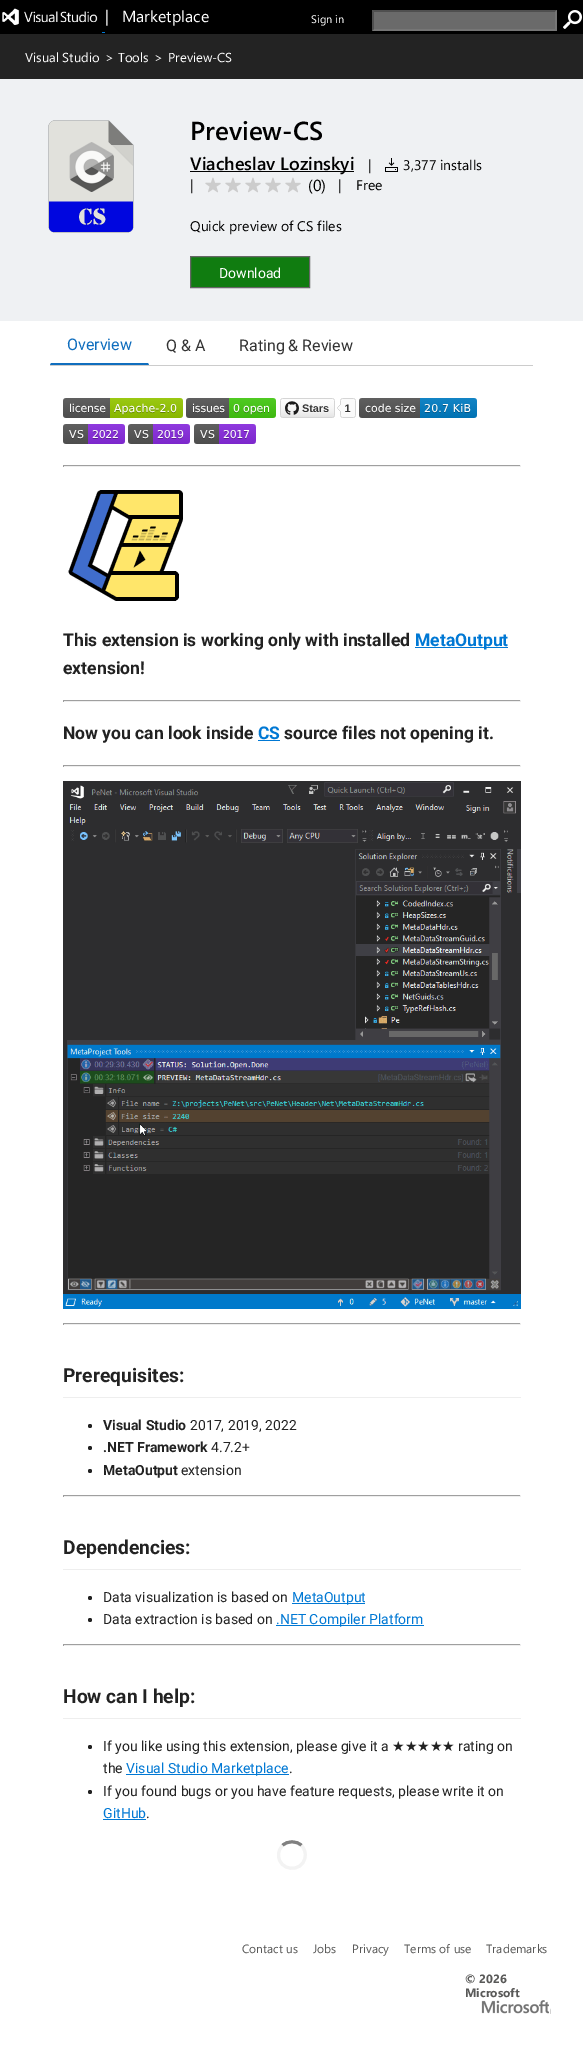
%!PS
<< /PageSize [583 2055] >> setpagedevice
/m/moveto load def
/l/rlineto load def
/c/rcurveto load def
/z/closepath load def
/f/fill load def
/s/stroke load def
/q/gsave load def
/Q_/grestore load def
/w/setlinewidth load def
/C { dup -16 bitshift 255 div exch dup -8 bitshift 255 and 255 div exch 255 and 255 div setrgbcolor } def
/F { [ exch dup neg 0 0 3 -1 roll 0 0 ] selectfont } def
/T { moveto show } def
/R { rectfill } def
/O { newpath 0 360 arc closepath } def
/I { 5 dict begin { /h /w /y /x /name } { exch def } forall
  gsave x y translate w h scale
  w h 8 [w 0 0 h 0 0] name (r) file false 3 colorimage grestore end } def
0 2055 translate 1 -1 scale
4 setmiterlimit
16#FFFFFF C
0 0 583 2055 R
16#000000 C
0 0 583 34 R
(1.rgb) 2 8 96 17 I
/SegoeUI-Regular 16 F
16#FFFFFF C
(|   Marketplace) 105 22 T
16#0078D4 C
102 32 3 1 R
/SegoeUI-Regular 11 F
16#FFFFFF C
(Sign in) 311 23 T
16#6A6A6A C
372 10 185 21 R
16#4F4F4F C
372 10 m 185 0 l -2 2 l -181 0 l z f
16#767676 C
557 10 m 0 21 l -2 -2 l 0 -17 l z f
557 31 m -185 0 l 2 -2 l 181 0 l z f
16#4F4F4F C
372 31 m 0 -21 l 2 2 l 0 17 l z f
(2.rgb) 563 10 19 19 I
16#232323 C
0 34 583 45 R
/SegoeUI-Regular 13 F
16#FFFFFF C
(Visual Studio) 25 62 T
(>) 105 62 T
(Tools) 118 62 T
(>) 154 62 T
(Preview-CS) 168 62 T
16#EFF1F3 C
0 79 583 242 R
(3.rgb) 48 120 86 113 I
/SegoeUI-SemiBold 26 F
16#000000 C
(Preview-CS) 190 140 T
190 171 164 1 R
/SegoeUI-SemiBold 18 F
(Viacheslav Lozinskyi) 190 170 T
/SegoeUI-Regular 14 F
(|) 368 170 T
(4.rgb) 385 158 13 14 I
(3,377 installs) 403 170 T
(|) 190 190 T
(5.rgb) 205 177 16 16 I
(5.rgb) 225 177 16 16 I
(5.rgb) 245 177 16 16 I
(5.rgb) 265 177 16 16 I
(5.rgb) 285 177 16 16 I
/SegoeUI-Regular 16 F
(\(0\)) 308 191 T
/SegoeUI-Regular 14 F
(|) 338 190 T
(Free) 356 190 T
(Quick preview of CS files) 190 231 T
16#107C10 C
190.5 256.5 m 119 0 l 0 31 l -119 0 l z q f Q_
16#666666 C
s
/Roboto-Regular 14 F
16#FFFFFF C
(Download) 219 278 T
16#CCCCCC C
50 365 483 1 R
16#106EBE C
149 365 m -99 0 l 1 -2 l 97 0 l z f
/Roboto-Regular 16 F
(Overview) 67 350 T
16#333333 C
(Q & A) 166 351 T
(Rating & Review) 239 351 T
(6.rgb) 63 398 120 20 I
(7.rgb) 186 398 90 20 I
(8.rgb) 280 398 76 20 I
(9.rgb) 359 398 118 20 I
(10.rgb) 63 424 62 20 I
(11.rgb) 128 424 62 20 I
(12.rgb) 194 424 62 20 I
16#9F9F9F C
63 465 458 1 R
16#EEEEEE C
520 465 1 2 R
63 466 458 1 R
16#9F9F9F C
63 465 1 2 R
(13.rgb) 67 490 116 111 I
/Roboto-Bold 17.5 F
16#222222 C
(This extension is working only with installed) 63 646 T
16#0078D4 C
415 647 93 1 R
(MetaOutput) 415 646 T
16#222222 C
(extension!) 63 674 T
16#9F9F9F C
63 700 458 1 R
16#EEEEEE C
520 700 1 2 R
63 701 458 1 R
16#9F9F9F C
63 700 1 2 R
16#222222 C
(Now you can look inside) 63 739 T
16#0078D4 C
(CS) 258 739 T
258 740 22 1 R
16#222222 C
(source files not opening it.) 284 739 T
16#9F9F9F C
63 765 458 1 R
16#EEEEEE C
520 765 1 2 R
63 766 458 1 R
16#9F9F9F C
63 765 1 2 R
(14.rgb) 63 781 458 528 I
63 1323 458 1 R
16#EEEEEE C
520 1323 1 2 R
63 1324 458 1 R
16#9F9F9F C
63 1323 1 2 R
16#EEEEEE C
63 1397 458 1 R
/Roboto-Bold 19.25 F
16#222222 C
(Prerequisites:) 63 1382 T
90 1426 2 O f
/Roboto-Bold 14 F
(Visual Studio) 103 1430 T
/Roboto-Regular 14 F
(2017, 2019, 2022) 190 1430 T
90 1448 2 O f
/Roboto-Bold 14 F
(.NET Framework) 103 1452 T
/Roboto-Regular 14 F
(4.7.2+) 211 1452 T
90 1471 2 O f
/Roboto-Bold 14 F
(MetaOutput) 103 1475 T
/Roboto-Regular 14 F
(extension) 181 1475 T
16#9F9F9F C
63 1495 458 1 R
16#EEEEEE C
520 1495 1 2 R
63 1496 458 1 R
16#9F9F9F C
63 1495 1 2 R
16#EEEEEE C
63 1569 458 1 R
/Roboto-Bold 19.25 F
16#222222 C
(Dependencies:) 63 1554 T
90 1598 2 O f
/Roboto-Regular 14 F
(Data visualization is based on) 103 1602 T
16#0078D4 C
292 1603 73 1 R
(MetaOutput) 292 1602 T
16#222222 C
90 1620 2 O f
(Data extraction is based on) 103 1624 T
16#0078D4 C
276 1625 148 1 R
(.NET Compiler Platform) 276 1624 T
16#9F9F9F C
63 1644 458 1 R
16#EEEEEE C
520 1644 1 2 R
63 1645 458 1 R
16#9F9F9F C
63 1644 1 2 R
16#EEEEEE C
63 1718 458 1 R
/Roboto-Bold 19.25 F
16#222222 C
(How can I help:) 63 1703 T
90 1747 2 O f
/Roboto-Regular 14 F
(If you like using this extension, please give it a) 103 1751 T
/DejaVuSans-Regular 14 F
(★★★★★) 392 1751 T
/Roboto-Regular 14 F
(rating on) 458 1751 T
(the) 103 1773 T
16#0078D4 C
126 1774 163 1 R
(Visual Studio Marketplace) 126 1773 T
16#222222 C
(.) 289 1773 T
90 1792 2 O f
(If you found bugs or you have feature requests, please write it on) 103 1796 T
16#0078D4 C
(GitHub) 103 1818 T
103 1819 43 1 R
16#222222 C
(.) 146 1818 T
16#808080 C
3 w
282.5 1845.5 m 5 -5 14 -5 19 0 c s
16#F3F3F3 C
301.5 1845.5 m 3 3 4.5 8 3.5 12 c -3 16 -26.5 13.5 -26.5 -2.5 c 0 -3.5 1.5 -7 4 -9.5 c s
/SegoeUI-Regular 12 F
16#595958 C
(Contact us) 242 1953 T
(Jobs) 313 1953 T
(Privacy) 352 1953 T
(Terms of use) 404 1953 T
(Trademarks) 486 1953 T
/SegoeUI-Bold 12 F
(© 2026) 465 1983 T
(Microsoft) 465 1997 T
(15.rgb) 481 2000 70 14 I
showpage
